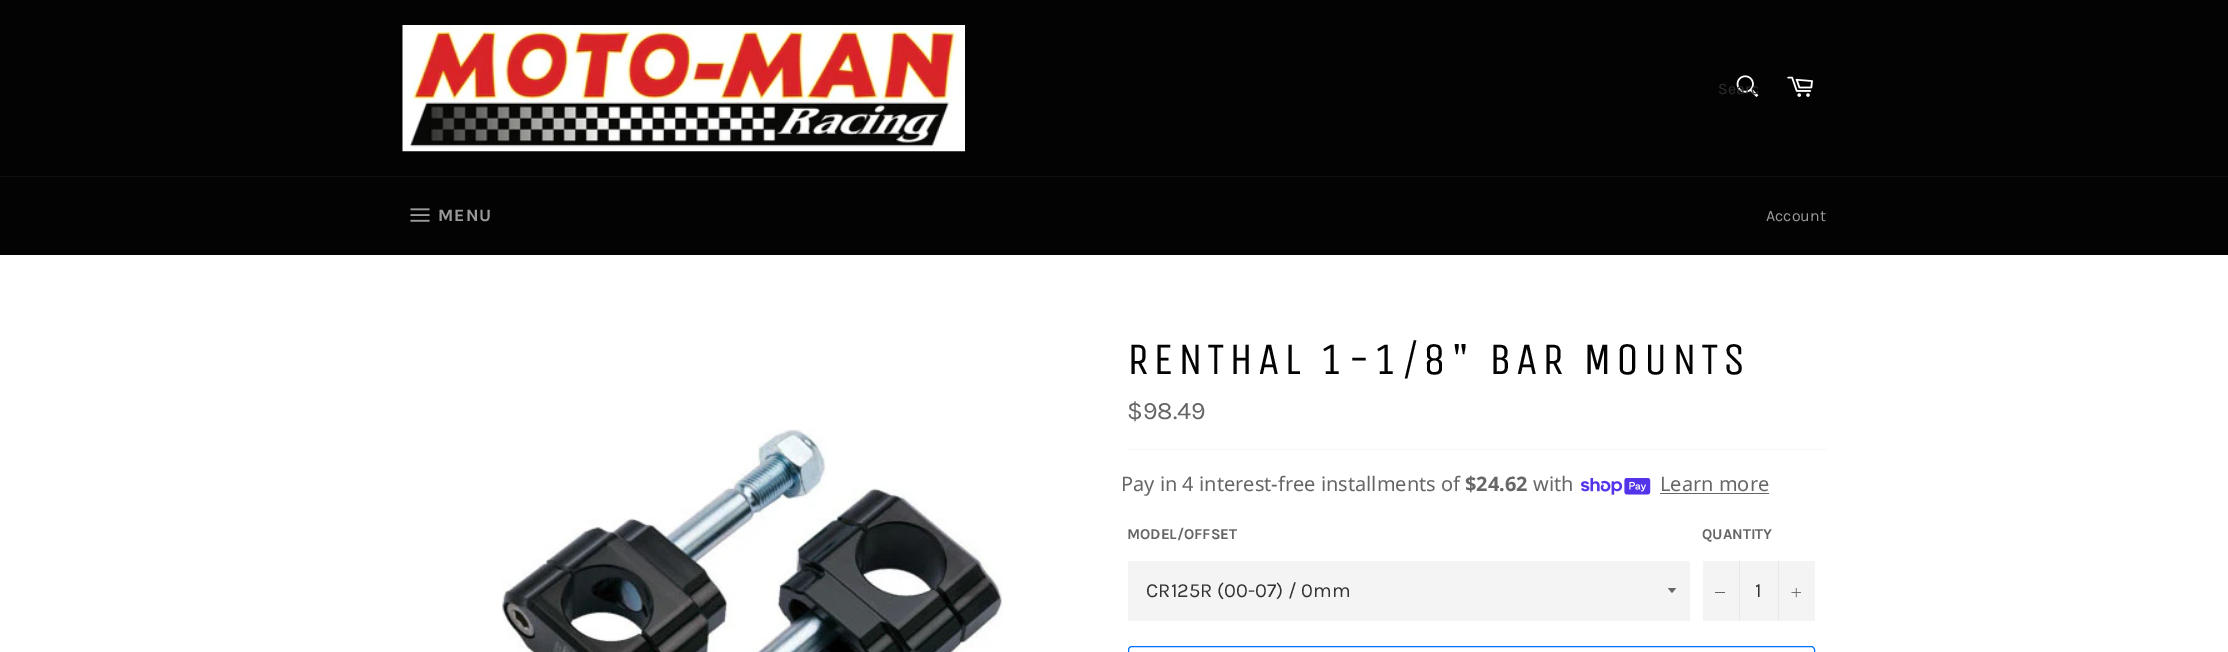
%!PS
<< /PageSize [2228 652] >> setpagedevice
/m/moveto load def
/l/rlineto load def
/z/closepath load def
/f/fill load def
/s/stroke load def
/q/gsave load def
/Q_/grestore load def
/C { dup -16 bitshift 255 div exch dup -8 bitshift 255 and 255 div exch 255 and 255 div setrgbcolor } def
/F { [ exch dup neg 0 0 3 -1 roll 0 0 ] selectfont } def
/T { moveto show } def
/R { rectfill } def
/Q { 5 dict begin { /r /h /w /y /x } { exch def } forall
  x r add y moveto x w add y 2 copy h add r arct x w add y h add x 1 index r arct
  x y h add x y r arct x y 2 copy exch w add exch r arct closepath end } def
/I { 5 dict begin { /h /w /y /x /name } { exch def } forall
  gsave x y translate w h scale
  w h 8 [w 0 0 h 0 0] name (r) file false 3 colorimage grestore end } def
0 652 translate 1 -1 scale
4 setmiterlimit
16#030303 C
0 0 2228 652 R
(1.rgb) 402 25 563 127 I
(2.rgb) 1736 75 23 22 I
q
1718 79 40 19 rectclip
/Karla-Regular 16 F
16#2D2D2D C
(Searc) 1718 94 T
Q_
(3.rgb) 1787 76 26 21 I
16#101010 C
0 176 2228 1 R
(4.rgb) 410 208 20 14 I
/Karla-Bold 17.5 F
16#9A9A9A C
438 221 m 1 0 (MENU) ashow
/Karla-Regular 16 F
(Account) 1766 221 T
16#FFFFFF C
0 255 2228 397 R
(5.rgb) 502 429 501 223 I
/UnicaOne-Regular 45 F
16#030303 C
1127 374 m 4.5 0 (RENTHAL 1-1/8" BAR MOUNTS) ashow
/Karla-Regular 25 F
16#666666 C
($98.49) 1127 419 T
16#F7F7F7 C
1128 449 700 1 R
/NotoSans-Regular 20 F
16#666666 C
(Pay in 4 interest-free installments of) 1121 491 T
/NotoSans-Bold 20 F
($24.62) 1465 491 T
/NotoSans-Regular 20 F
(with) 1533 491 T
(6.rgb) 1581 478 70 17 I
(Learn more) 1660 491 T
1660 493 109 1 R
/Karla-Bold 15 F
(MODEL/OFFSET) 1127 539 T
16#F4F4F4 C
1128 561 562 60 R
q
1668 588 10 6 rectclip
16#666666 C
1667.5 587.5 m 4.5 5.5 l 4.5 -5.5 l z f
Q_
/Karla-Regular 20 F
16#333333 C
(CR125R \(00-07\) / 0mm) 1146 597 T
/Karla-Bold 15 F
16#666666 C
(QUANTITY) 1702 539 T
16#F4F4F4 C
1703 561 112 60 R
16#E7E7E7 C
1739 561 1 60 R
16#666666 C
1715 592 10 1 R
/Karla-Regular 20 F
16#333333 C
(1) 1755 597 T
16#E7E7E7 C
1778 561 1 60 R
(7.rgb) 1791 588 10 10 I
16#006EFF C
1128.5 646.5 686 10 3.5 Q s
showpage
